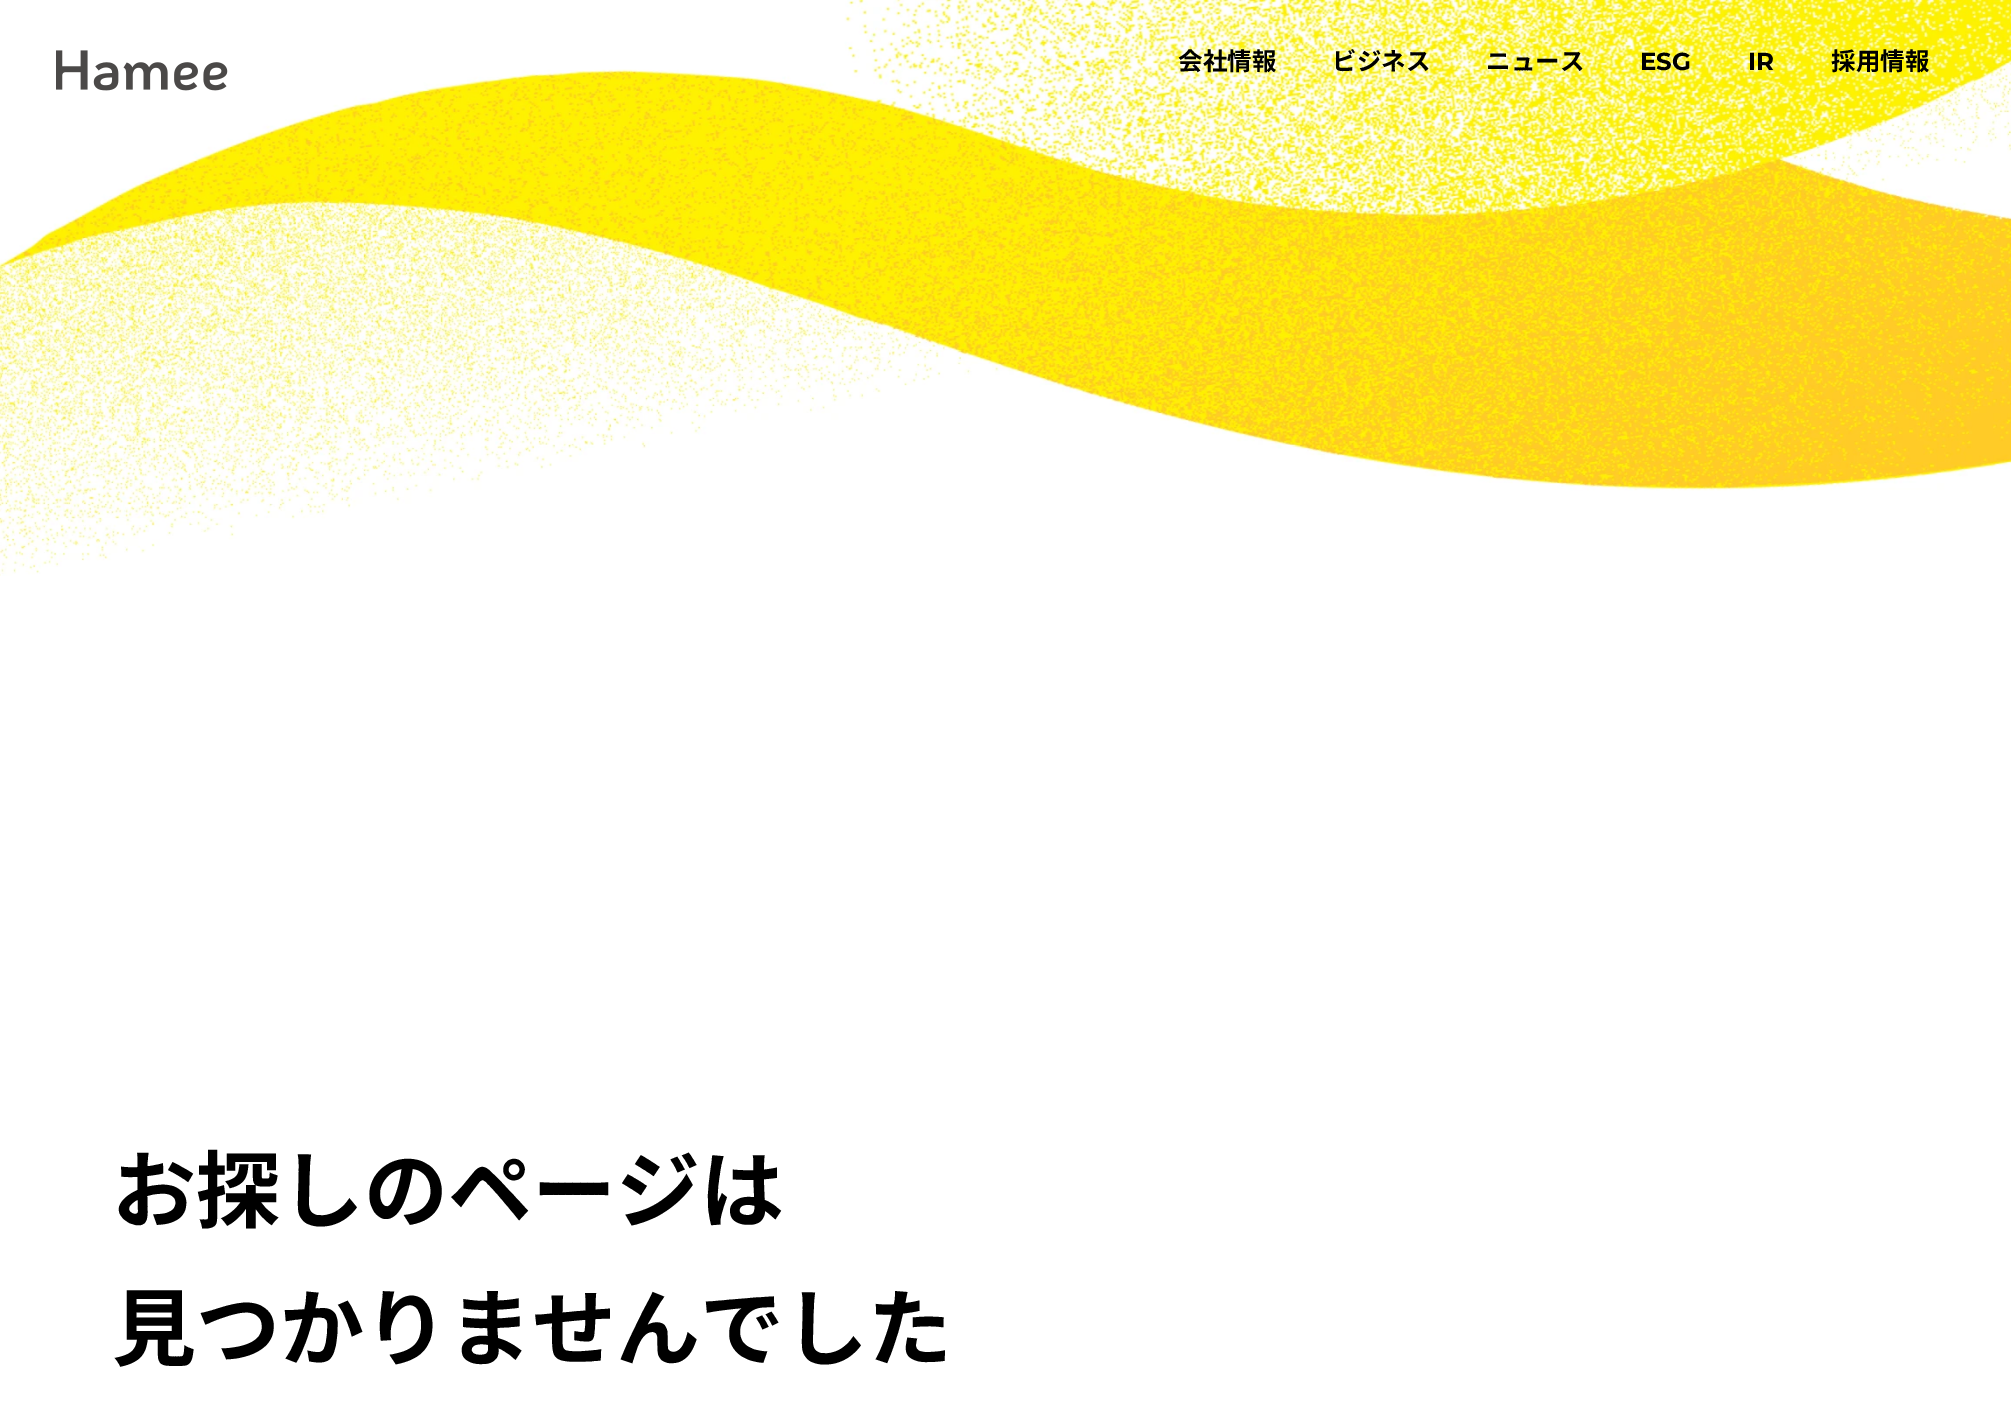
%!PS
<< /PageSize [2011 1411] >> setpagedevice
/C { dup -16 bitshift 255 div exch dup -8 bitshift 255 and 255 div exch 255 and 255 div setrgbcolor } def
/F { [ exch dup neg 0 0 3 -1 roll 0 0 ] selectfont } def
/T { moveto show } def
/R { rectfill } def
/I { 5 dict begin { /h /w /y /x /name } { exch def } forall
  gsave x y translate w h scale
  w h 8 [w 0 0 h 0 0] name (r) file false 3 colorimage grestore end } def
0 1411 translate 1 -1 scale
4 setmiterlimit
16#FFFFFF C
0 0 2011 1411 R
(2.rgb) 0 0 2011 576 I
(1.rgb) 56 50 172 41 I
/NotoSansJP-Bold 24.5 F
16#000000 C
(会社情報) 1178 70 T
(ビジネス) 1332 70 T
(ニュース) 1486 70 T
/Montserrat-Bold 24.5 F
(ESG) 1640 70 T
(IR) 1748 70 T
/NotoSansJP-Bold 24.5 F
(採用情報) 1831 70 T
/NotoSansJP-Bold 84 F
(お探しのページは) 112 1221 T
(見つかりませんでした) 112 1359 T
showpage
